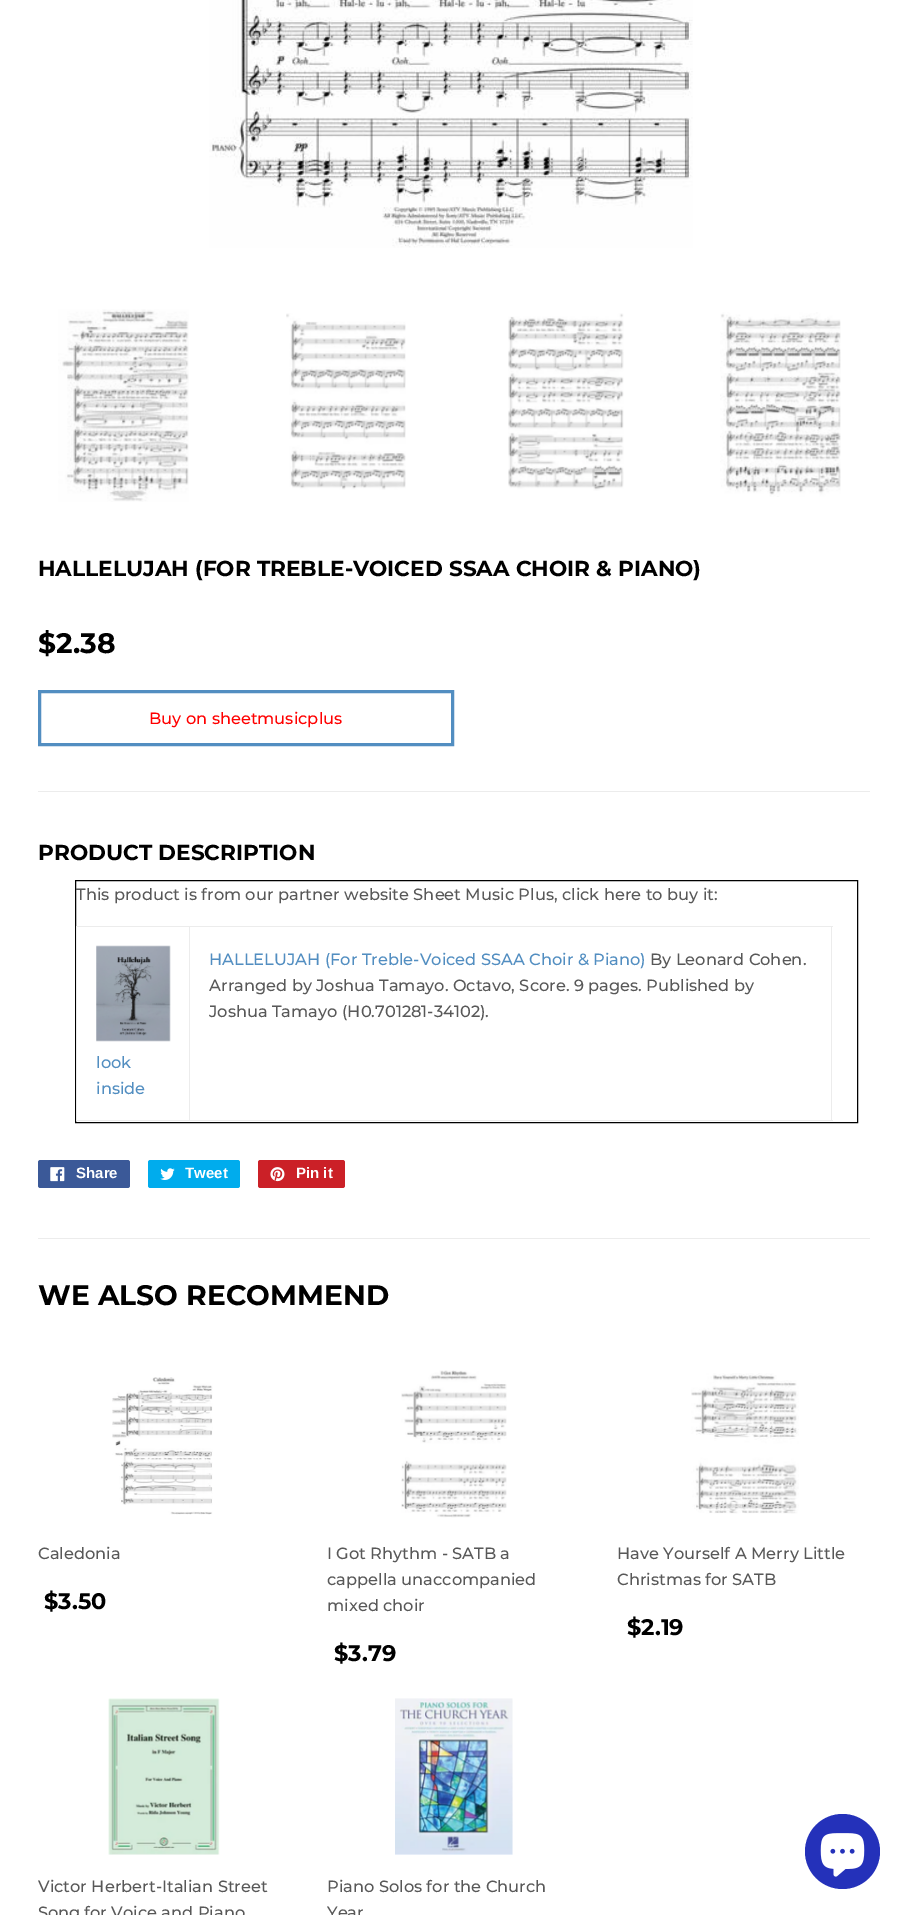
%!PS
<< /PageSize [907 1915] >> setpagedevice
/f/fill load def
/w/setlinewidth load def
/C { dup -16 bitshift 255 div exch dup -8 bitshift 255 and 255 div exch 255 and 255 div setrgbcolor } def
/F { [ exch dup neg 0 0 3 -1 roll 0 0 ] selectfont } def
/T { moveto show } def
/R { rectfill } def
/O { newpath 0 360 arc closepath } def
/Q { 5 dict begin { /r /h /w /y /x } { exch def } forall
  x r add y moveto x w add y 2 copy h add r arct x w add y h add x 1 index r arct
  x y h add x y r arct x y 2 copy exch w add exch r arct closepath end } def
/I { 5 dict begin { /h /w /y /x /name } { exch def } forall
  gsave x y translate w h scale
  w h 8 [w 0 0 h 0 0] name (r) file false 3 colorimage grestore end } def
0 1915 translate 1 -1 scale
4 setmiterlimit
16#FFFFFF C
0 0 907 1915 R
(1.rgb) 209 0 484 248 I
(2.rgb) 58 309 131 193 I
(3.rgb) 286 313 120 177 I
(4.rgb) 508 313 116 178 I
(5.rgb) 720 312 121 185 I
/Montserrat-Bold 21.65 F
16#000000 C
(HALLELUJAH \(FOR TREBLE-VOICED SSAA CHOIR & PIANO\)) 38 576 T
/Montserrat-Bold 28.2 F
($2.38) 38 653 T
16#528EC1 C
3 w
39.5 691.5 413 53 rectstroke
/Montserrat-Medium 16.25 F
16#FF0000 C
(Buy on sheetmusicplus) 149 724 T
16#ECECEC C
38 791 832 1 R
/Montserrat-Bold 21.65 F
16#000000 C
(PRODUCT DESCRIPTION) 38 860 T
1 w
75.5 880.5 782 242 rectstroke
/Montserrat-Medium 16.25 F
16#585858 C
(This product is from our partner website Sheet Music Plus, click here to buy it:) 76 900 T
16#ECECEC C
189 926 644 1 R
831 926 1 195 R
189 1120 644 1 R
189 926 1 195 R
16#528EC1 C
(HALLELUJAH \(For Treble-Voiced SSAA Choir & Piano\)) 209 965 T
16#585858 C
(By Leonard Cohen.) 650 965 T
(Arranged by Joshua Tamayo. Octavo, Score. 9 pages. Published by) 209 991 T
(Joshua Tamayo \(H0.701281-34102\).) 209 1017 T
16#ECECEC C
76 926 114 1 R
76 1120 114 1 R
76 926 1 195 R
(6.rgb) 96 945 75 97 I
16#528EC1 C
(look) 96 1068 T
(inside) 96 1094 T
16#3B5998 C
38 1160 92 28 2.5 Q f
(7.rgb) 50 1167 15 15 I
/LiberationSans-Bold 15 F
16#FFFFFF C
(Share) 76 1178 T
16#00ACED C
148 1160 92 28 2.5 Q f
(8.rgb) 160 1168 15 12 I
16#FFFFFF C
(Tweet) 185 1178 T
16#CB2027 C
258 1160 87 28 2.5 Q f
(9.rgb) 270 1167 15 15 I
16#FFFFFF C
(Pin it) 296 1178 T
16#ECECEC C
38 1238 832 1 R
/Montserrat-Bold 28.2 F
16#000000 C
(WE ALSO RECOMMEND) 38 1305 T
(10.rgb) 112 1377 101 138 I
/Montserrat-Medium 16.25 F
16#585858 C
(Caledonia) 38 1559 T
/Montserrat-Bold 22.5 F
16#000000 C
($3.50) 44 1609 T
(11.rgb) 401 1370 106 148 I
/Montserrat-Medium 16.25 F
16#585858 C
(I Got Rhythm - SATB a) 327 1559 T
(cappella unaccompanied) 327 1585 T
(mixed choir) 327 1611 T
/Montserrat-Bold 22.5 F
16#000000 C
($3.79) 334 1661 T
(12.rgb) 691 1373 108 141 I
/Montserrat-Medium 16.25 F
16#585858 C
(Have Yourself A Merry Little) 617 1559 T
(Christmas for SATB) 617 1585 T
/Montserrat-Bold 22.5 F
16#000000 C
($2.19) 627 1635 T
(13.rgb) 108 1698 112 157 I
/Montserrat-Medium 16.25 F
16#585858 C
(Victor Herbert-Italian Street) 38 1892 T
(Song,for Voice and Piano) 38 1918 T
(14.rgb) 395 1698 118 157 I
(Piano Solos for the Church) 327 1892 T
(Year) 327 1918 T
16#2431BA C
842.5 1851.5 37.5 O f
(15.rgb) 820 1833 45 44 I
showpage
